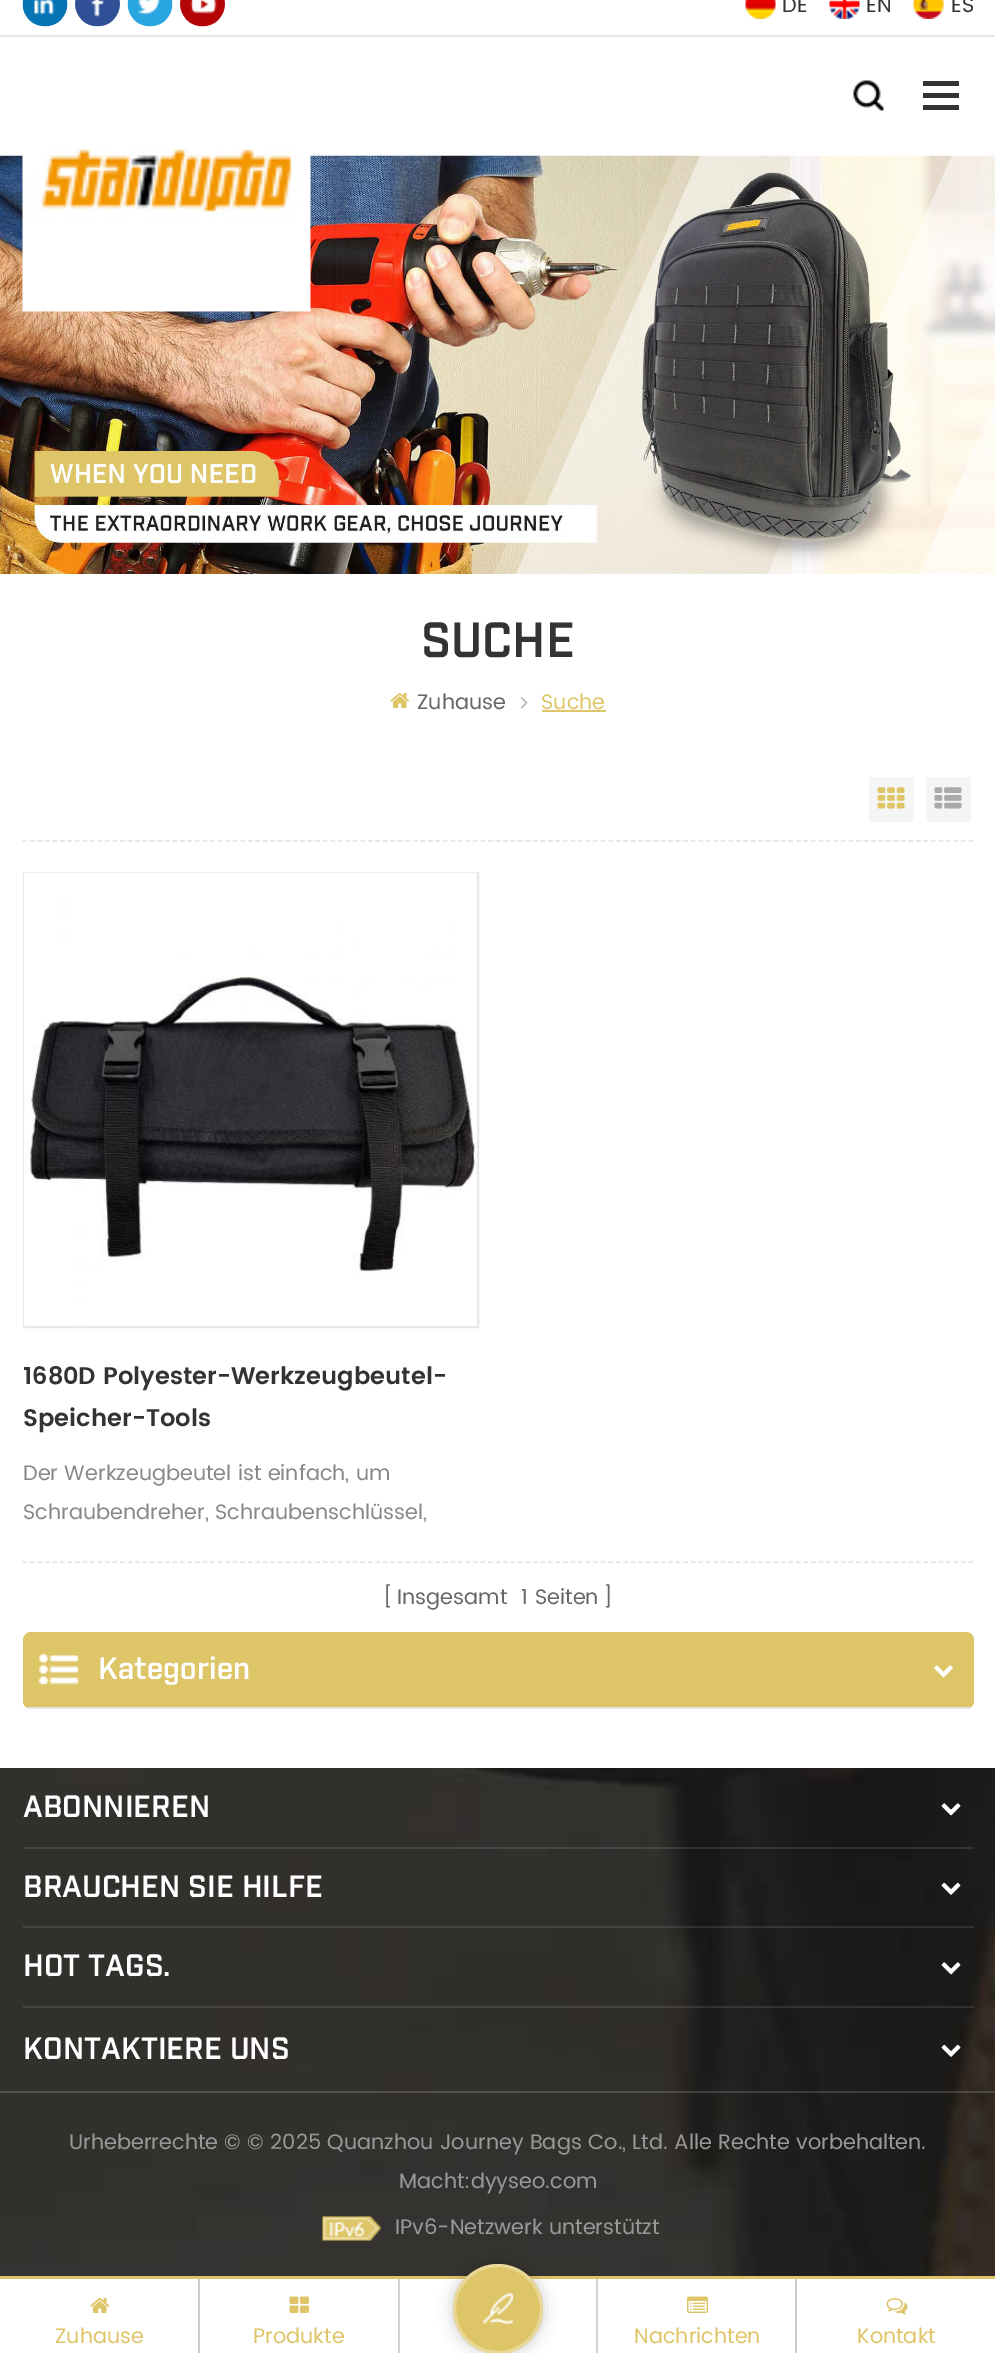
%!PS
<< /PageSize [995 2353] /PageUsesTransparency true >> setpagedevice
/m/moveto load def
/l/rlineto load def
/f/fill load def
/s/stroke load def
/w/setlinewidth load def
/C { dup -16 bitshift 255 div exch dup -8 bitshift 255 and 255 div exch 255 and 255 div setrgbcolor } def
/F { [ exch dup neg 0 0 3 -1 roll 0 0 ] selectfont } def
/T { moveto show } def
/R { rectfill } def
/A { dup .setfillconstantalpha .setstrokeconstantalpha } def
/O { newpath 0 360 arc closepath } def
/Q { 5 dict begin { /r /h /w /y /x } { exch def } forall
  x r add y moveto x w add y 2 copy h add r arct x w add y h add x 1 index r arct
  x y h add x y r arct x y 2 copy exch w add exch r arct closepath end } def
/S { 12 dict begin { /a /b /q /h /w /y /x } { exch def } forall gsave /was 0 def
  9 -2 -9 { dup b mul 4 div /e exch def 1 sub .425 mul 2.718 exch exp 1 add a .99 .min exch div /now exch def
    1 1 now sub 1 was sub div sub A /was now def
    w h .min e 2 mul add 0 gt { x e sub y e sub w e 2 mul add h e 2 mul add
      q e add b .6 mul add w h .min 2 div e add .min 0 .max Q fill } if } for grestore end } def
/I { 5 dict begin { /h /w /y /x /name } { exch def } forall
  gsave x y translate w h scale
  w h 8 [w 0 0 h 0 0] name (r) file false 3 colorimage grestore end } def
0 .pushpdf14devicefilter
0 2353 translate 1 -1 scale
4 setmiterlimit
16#FFFFFF C
0 0 995 2353 R
16#E6E6E6 C
0 35 995 2 R
(1.rgb) 22 0 46 27 I
(2.rgb) 75 0 45 27 I
(3.rgb) 127 0 46 27 I
(4.rgb) 180 0 45 27 I
(5.rgb) 745 0 31 19 I
/Poppins-Regular 21 F
16#333333 C
(DE) 782 12 T
(6.rgb) 829 0 31 19 I
(EN) 866 12 T
(7.rgb) 913 0 31 19 I
(ES) 951 12 T
(8.rgb) 853 80 31 31 I
923 81 36 5 R
923 93 36 5 R
923 105 36 5 R
(10.rgb) 0 155 995 419 I
(9.rgb) 22 149 289 163 I
/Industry-SemiBold 48 F
(SUCHE) 421 657 T
(11.rgb) 390 693 20 15 I
/Poppins-Regular 21 F
16#666666 C
(Zuhause) 417 709 T
(12.rgb) 520 697 8 12 I
16#DEC568 C
(Suche) 541 709 T
542 710 64 2 R
16#E5E5E5 C
1.5 w
[4.5 3.01] 0 setdash
22.5 841 m 951 0 l s
16#F5F5F5 C
869 777 45 45 R
(13.rgb) 877 787 28 22 I
926 777 45 45 R
(14.rgb) 934 787 28 22 I
16#E8E8E8 C
2 w
[] 0 setdash
24 873 454 454 rectstroke
(15.rgb) 24 872 453 454 I
/Poppins-SemiBold 24 F
16#333333 C
(1680D Polyester-Werkzeugbeutel-) 23 1384 T
(Speicher-Tools) 23 1426 T
/Poppins-Regular 21 F
16#888888 C
(Der Werkzeugbeutel ist einfach, um) 23 1480 T
(Schraubendreher, Schraubenschlüssel,) 23 1519 T
16#E5E5E5 C
1.5 w
[4.5 3.01] 0 setdash
22.5 1562 m 951 0 l s
16#666666 C
([) 383 1604 T
(Insgesamt) 397 1604 T
(1) 521 1604 T
(Seiten) 535 1604 T
(]) 603 1604 T
16#DEC568 C
23 1632 951 77 8 Q f
16#E5E5E5 C
27 1707 944 2 R
(16.rgb) 38 1653 41 32 I
/Industry-SemiBold 30 F
16#FFFFFF C
(Kategorien) 98 1679 T
(17.rgb) 934 1665 19 13 I
(18.rgb) 0 1768 995 508 I
0.15 A
0 2091 995 2 R
0.1 A
23 1847 951 2 R
1 A
(ABONNIEREN) 23 1817 T
(19.rgb) 941 1803 20 13 I
0.1 A
23 1926 951 2 R
1 A
(BRAUCHEN SIE HILFE) 23 1897 T
(20.rgb) 941 1882 20 13 I
0.1 A
23 2006 951 2 R
1 A
(HOT TAGS.) 23 1976 T
(21.rgb) 941 1962 20 13 I
(KONTAKTIERE UNS) 23 2059 T
(22.rgb) 941 2044 20 13 I
/Poppins-Regular 21 F
16#999999 C
(Urheberrechte © © 2025 Quanzhou Journey Bags Co., Ltd. Alle Rechte vorbehalten.) 69 2149 T
(Macht:dyyseo.com) 399 2188 T
(23.rgb) 322 2216 59 25 I
(IPv6-Netzwerk unterstützt) 395 2234 T
16#DEC568 C
0 2276 995 3 R
16#000000 C
453 2264 90 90 45 7.5 .2 S
16#DEC568 C
498 2309 45 O f
0.3 A
16#FFFFFF C
3 w
[] 0 setdash
498 2309 43.5 O s
1 A
(24.rgb) 483 2293 30 31 I
16#CCCCCC C
198 2279 2 74 R
(11.rgb) 90 2298 20 15 I
16#DEC568 C
(Zuhause) 55 2343 T
16#CCCCCC C
398 2279 2 74 R
(25.rgb) 289 2296 20 17 I
16#DEC568 C
(Produkte) 253 2343 T
16#CCCCCC C
596 2279 2 74 R
0.2 A
16#FFFFFF C
399 2279 1 74 R
1 A
16#CCCCCC C
795 2279 2 74 R
0.2 A
16#FFFFFF C
597 2279 1 74 R
1 A
(26.rgb) 687 2296 21 17 I
16#DEC568 C
(Nachrichten) 634 2343 T
(27.rgb) 886 2298 22 17 I
(Kontakt) 857 2343 T
.poppdf14devicefilter showpage
